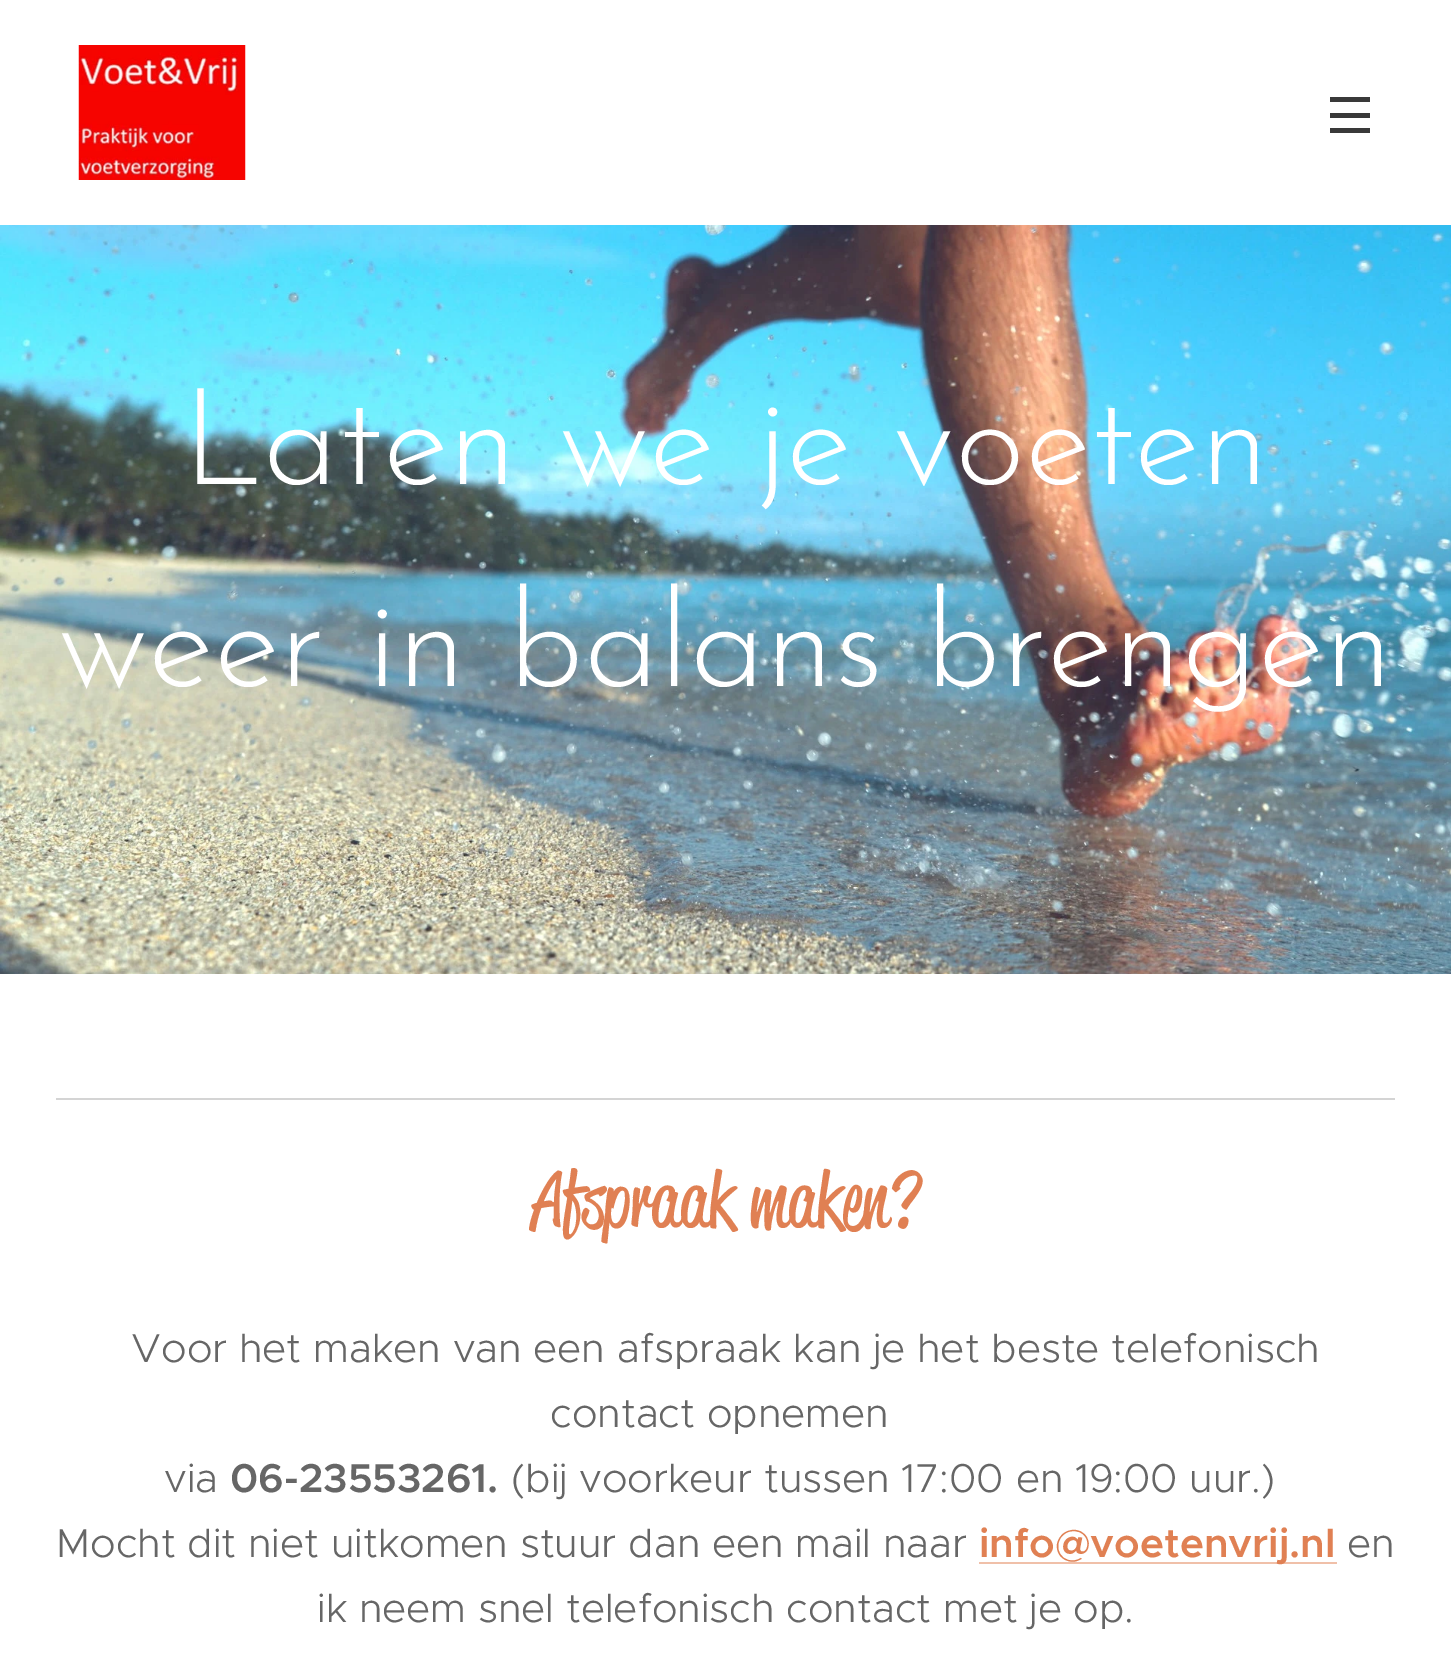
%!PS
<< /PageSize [1451 1670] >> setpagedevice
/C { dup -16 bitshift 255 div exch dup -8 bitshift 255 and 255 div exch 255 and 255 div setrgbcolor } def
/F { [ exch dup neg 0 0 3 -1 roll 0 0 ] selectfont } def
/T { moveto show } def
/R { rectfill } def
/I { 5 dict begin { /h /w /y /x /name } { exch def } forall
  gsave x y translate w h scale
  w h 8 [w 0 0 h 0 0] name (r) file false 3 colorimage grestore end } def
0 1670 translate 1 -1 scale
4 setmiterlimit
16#FFFFFF C
0 0 1451 1670 R
(1.rgb) 78 45 168 135 I
16#393939 C
1330 113 40 5 R
1330 97 40 5 R
1330 128 40 5 R
(2.rgb) 0 225 1451 749 I
/JosefinSans-Light 135 F
16#FFFFFF C
(Laten we je voeten) 182 484 T
(weer in balans brengen) 58 686 T
16#D4D4D4 C
56 1098 1339 2 R
/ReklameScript-Regular 76.5 F
16#E08053 C
(Afspraak maken?) 532 1226 T
/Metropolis-Light 40.5 F
16#666666 C
(Voor het maken van een afspraak kan je het beste telefonisch) 131 1362 T
(contact opnemen) 550 1427 T
(via) 164 1492 T
/Metropolis-SemiBold 40.5 F
(06-23553261.) 230 1492 T
/Metropolis-Light 40.5 F
(\(bij voorkeur tussen 17:00 en 19:00 uur.\)) 511 1492 T
(Mocht dit niet uitkomen stuur dan een mail naar) 56 1557 T
16#F0C0A9 C
979 1562 358 2 R
/Metropolis-SemiBold 40.5 F
16#E08053 C
(info@voetenvrij.nl) 979 1557 T
/Metropolis-Light 40.5 F
16#666666 C
(en) 1347 1557 T
(ik neem snel telefonisch contact met je op.) 317 1622 T
showpage
